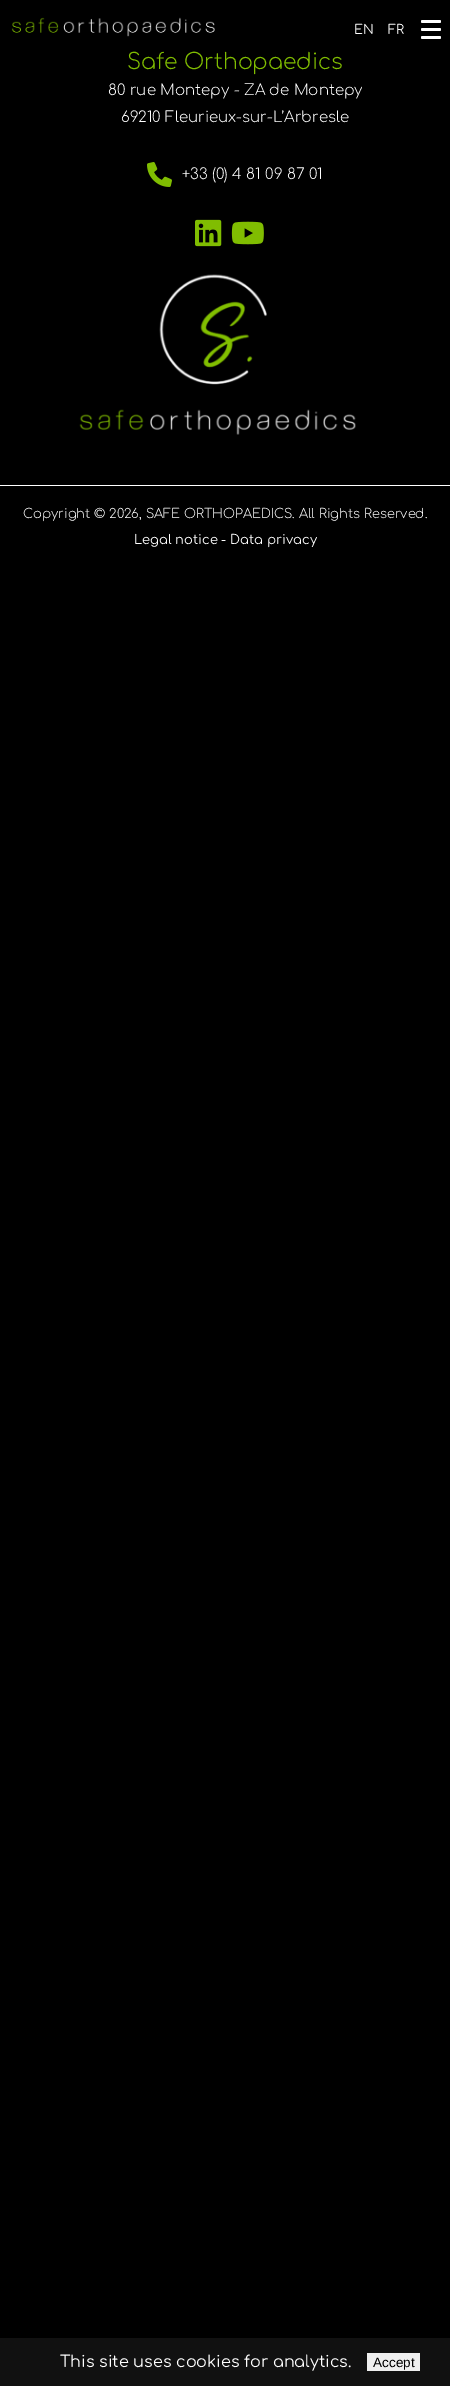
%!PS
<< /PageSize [450 2386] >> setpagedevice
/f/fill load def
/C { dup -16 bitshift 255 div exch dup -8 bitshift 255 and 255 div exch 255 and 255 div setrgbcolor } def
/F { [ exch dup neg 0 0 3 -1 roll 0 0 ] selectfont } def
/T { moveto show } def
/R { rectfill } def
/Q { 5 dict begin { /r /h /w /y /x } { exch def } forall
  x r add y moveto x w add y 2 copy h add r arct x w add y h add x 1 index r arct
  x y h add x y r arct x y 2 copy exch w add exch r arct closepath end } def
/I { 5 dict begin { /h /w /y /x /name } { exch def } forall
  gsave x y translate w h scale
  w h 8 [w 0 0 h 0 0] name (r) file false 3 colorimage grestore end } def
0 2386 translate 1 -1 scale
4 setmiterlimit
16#000000 C
0 0 450 2386 R
(1.rgb) 11 17 204 20 I
/Comfortaa-Regular 13 F
16#FFFFFF C
(EN) 354 34 T
(FR) 388 34 T
421 20 20 3 1.5 Q f
421 28 20 3 1.5 Q f
421 36 20 3 1.5 Q f
/Comfortaa-Light 22 F
16#80BD01 C
(Safe Orthopaedics) 127 69 T
/Comfortaa-Light 15 F
16#FFFFFF C
(80 rue Montepy - ZA de Montepy) 108 95 T
(69210 Fleurieux-sur-L’Arbresle) 121 122 T
(2.rgb) 147 162 25 25 I
(+33 \(0\) 4 81 09 87 01) 182 179 T
(3.rgb) 195 219 27 28 I
(4.rgb) 231 221 33 24 I
(5.rgb) 79 274 277 161 I
0 485 450 1 R
/Comfortaa-Light 13 F
(Copyright © 2026, SAFE ORTHOPAEDICS. All Rights Reserved.) 23 518 T
/Comfortaa-Regular 13 F
(Legal notice - Data privacy) 134 544 T
16#111111 C
0 2338 450 48 R
/Comfortaa-Regular 16 F
16#FFFFFF C
(This site uses cookies for analytics.) 60 2367 T
16#EFEFEF C
367 2353 53 18 R
/LiberationSans-Regular 13.5 F
16#000000 C
(Accept) 373 2367 T
showpage
